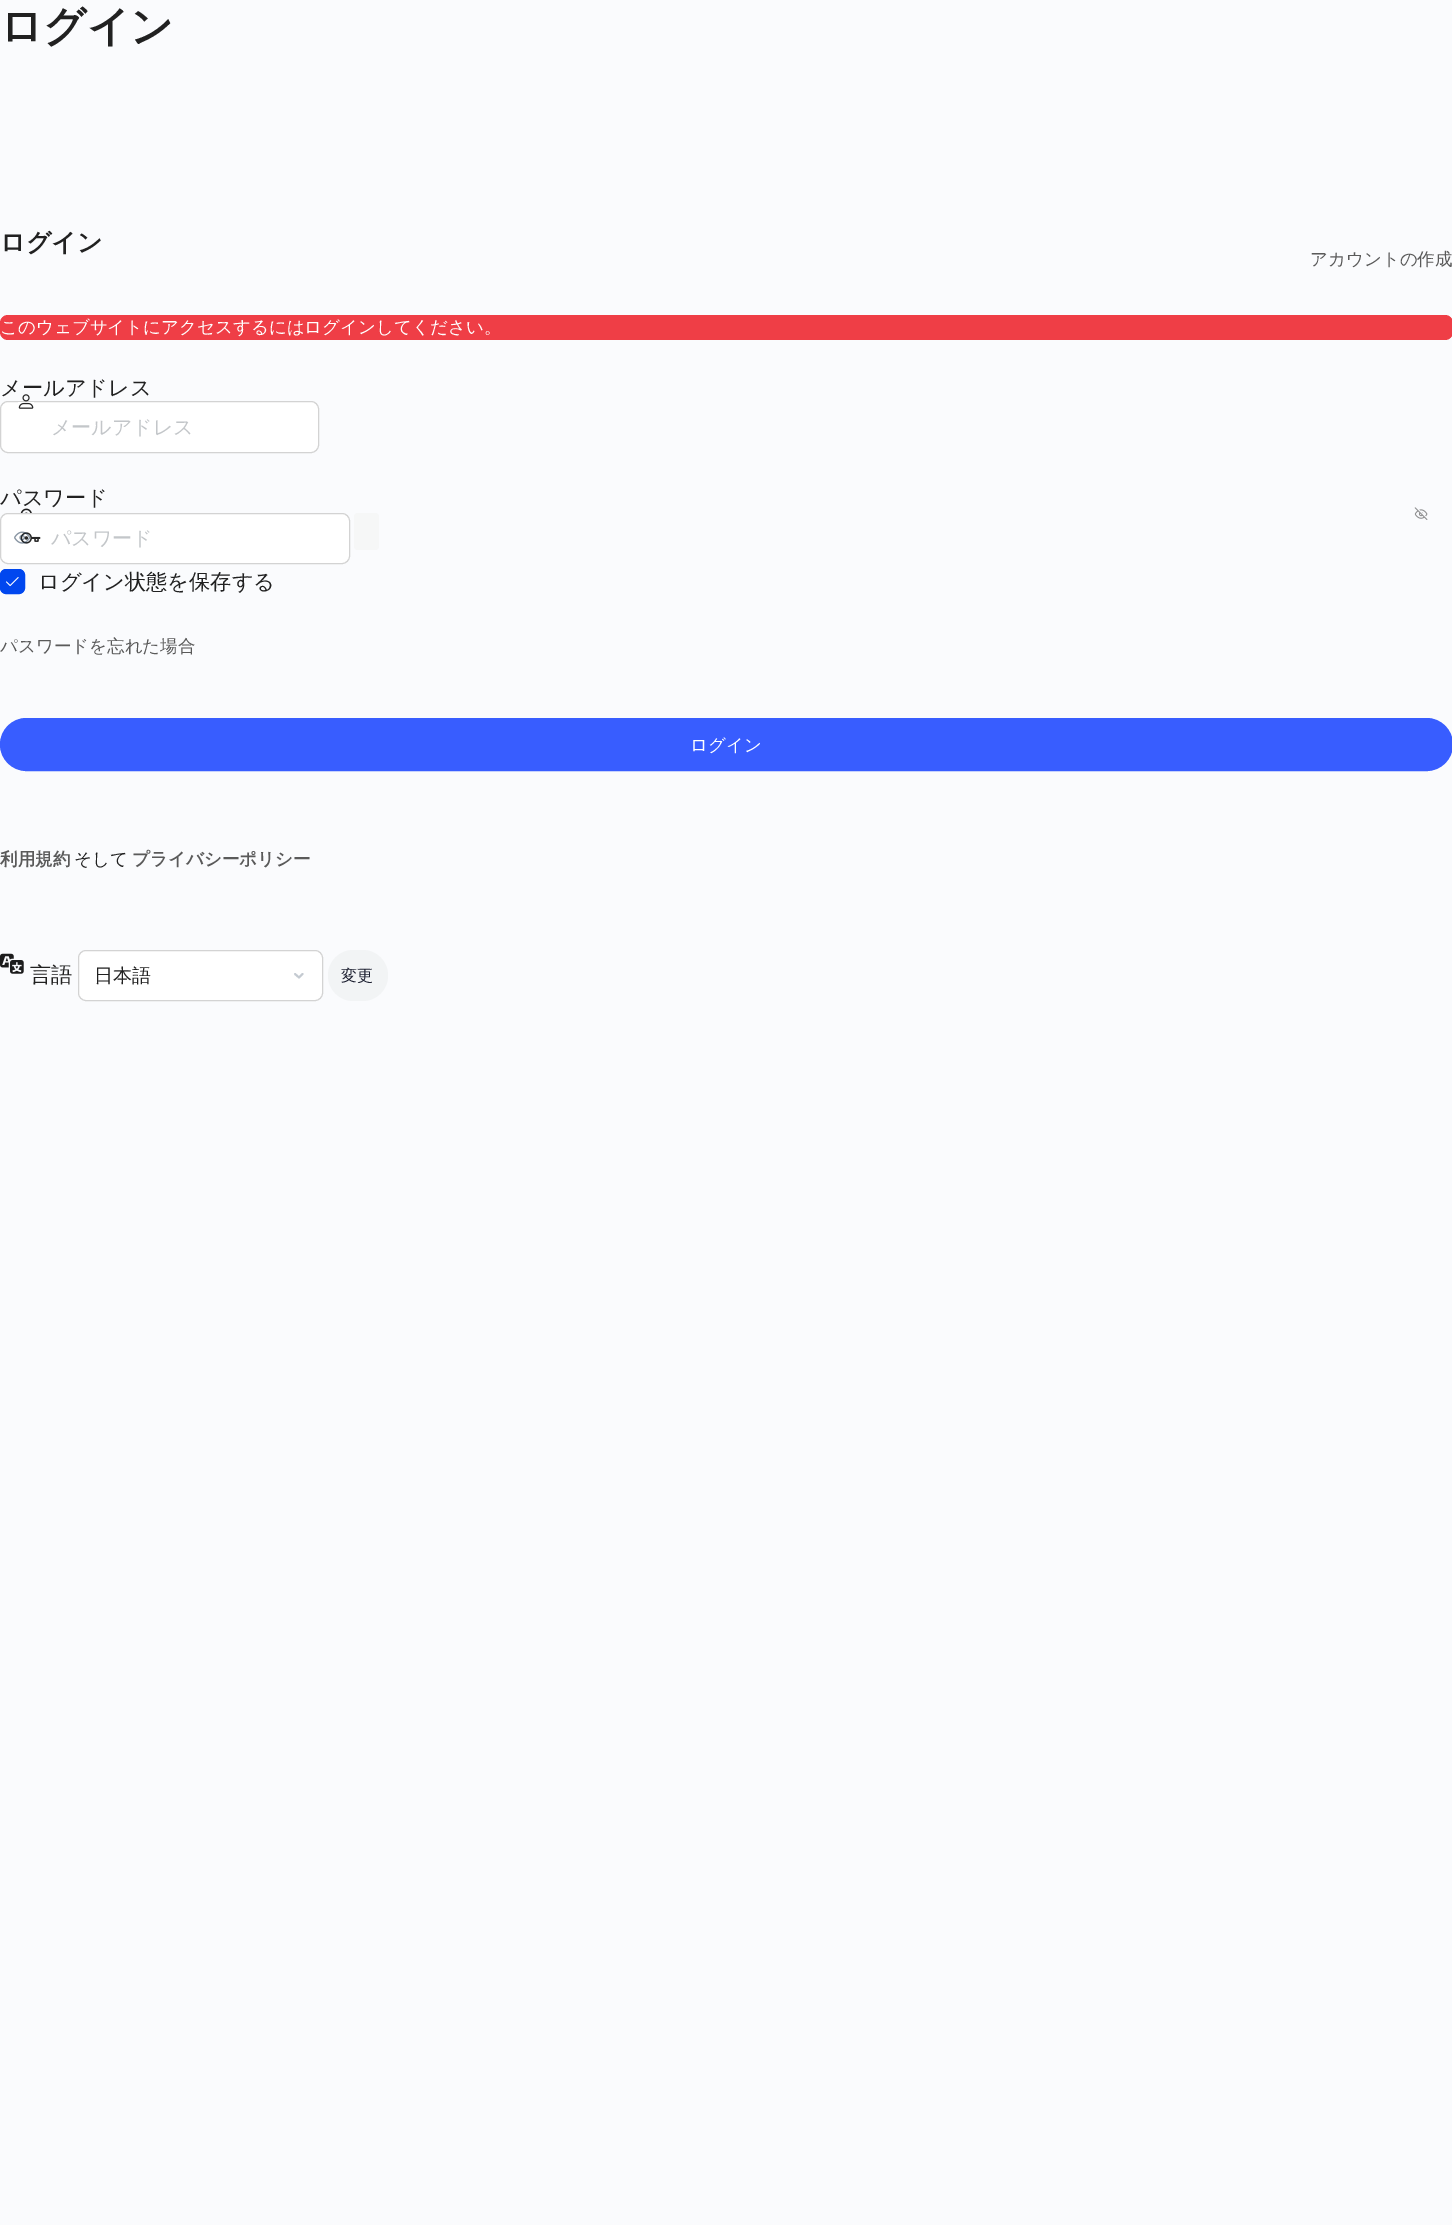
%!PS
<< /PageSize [1452 2225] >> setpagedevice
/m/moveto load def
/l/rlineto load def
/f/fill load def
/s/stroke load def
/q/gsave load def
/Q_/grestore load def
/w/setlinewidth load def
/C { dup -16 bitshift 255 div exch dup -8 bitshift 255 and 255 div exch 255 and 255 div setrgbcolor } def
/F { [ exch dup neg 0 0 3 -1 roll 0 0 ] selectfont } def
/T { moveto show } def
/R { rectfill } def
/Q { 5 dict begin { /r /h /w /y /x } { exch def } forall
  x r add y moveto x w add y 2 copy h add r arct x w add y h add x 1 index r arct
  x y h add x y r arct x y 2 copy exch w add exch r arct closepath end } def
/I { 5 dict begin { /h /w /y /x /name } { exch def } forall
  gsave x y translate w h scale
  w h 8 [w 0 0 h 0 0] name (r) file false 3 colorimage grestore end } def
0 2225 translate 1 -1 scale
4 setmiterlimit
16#FAFBFD C
0 0 1452 2225 R
/WenQuanYiZenHei-Bold 42.5 F
16#212121 C
(ログイン) 0 41 T
/WenQuanYiZenHei-Bold 25 F
(ログイン) 0 251 T
/WenQuanYiZenHei-Medium 17.5 F
16#5A5A5A C
(アカウントの作成) 1310 265 T
16#EF3E46 C
0 315 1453 25 8 Q f
16#FFFFFF C
(このウェブサイトにアクセスするにはログインしてください。) 0 333 T
/WenQuanYiZenHei-Medium 21.25 F
16#212121 C
(メールアドレス) 0 395 T
16#FFFFFF C
.5 401.5 318 51 7.5 Q q f Q_
16#D3D3D3 C
s
(1.rgb) 18 394 16 15 I
/WenQuanYiZenHei-Medium 20 F
16#C3C6C9 C
(メールアドレス) 51 434 T
/WenQuanYiZenHei-Medium 21.25 F
16#212121 C
(パスワード) 0 505 T
(2.rgb) 20 508 12 5 I
(3.rgb) 1414 507 14 13 I
16#F6F7F7 C
354 513 25 37 4 Q f
16#FFFFFF C
.5 513.5 349 50 7.5 Q q f Q_
16#D3D3D3 C
s
(5.rgb) 20 532 21 12 I
(4.rgb) 14 531 17 13 I
/WenQuanYiZenHei-Medium 20 F
16#C3C6C9 C
(パスワード) 51 545 T
16#0047EF C
.5 569.5 24 24 5.5 Q q f Q_
s
(6.rgb) 6 577 13 10 I
/WenQuanYiZenHei-Medium 21.25 F
16#212121 C
(ログイン状態を保存する) 38 589 T
/WenQuanYiZenHei-Medium 17.5 F
16#5A5A5A C
(パスワードを忘れた場合) 0 652 T
16#385DFF C
.5 718.5 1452 52 26 Q q f Q_
s
16#FFFFFF C
(ログイン) 690 751 T
/WenQuanYiZenHei-Bold 17.5 F
16#5A5A5A C
(利用規約) 0 865 T
/WenQuanYiZenHei-Medium 17.5 F
16#212121 C
(そして) 74 865 T
/WenQuanYiZenHei-Bold 17.5 F
16#5A5A5A C
(プライバシーポリシー) 132 865 T
(7.rgb) 0 953 24 21 I
/WenQuanYiZenHei-Medium 21.25 F
16#212121 C
(言語) 30 982 T
16#FFFFFF C
78 950 245 51 8 Q f
16#C4CAD1 C
1.9 w
1 setlinecap
1 setlinejoin
302.5 974 m -3.5 3.5 l -4 -3.5 l s
16#D3D3D3 C
1 w
0 setlinecap
0 setlinejoin
78.5 950.5 244 50 7.5 Q s
/WenQuanYiZenHei-Medium 19 F
16#212121 C
(日本語) 94 982 T
16#F2F4F5 C
328 950 60 51 25.5 Q f
/WenQuanYiZenHei-Medium 16 F
16#1E2132 C
(変更) 341 981 T
showpage
